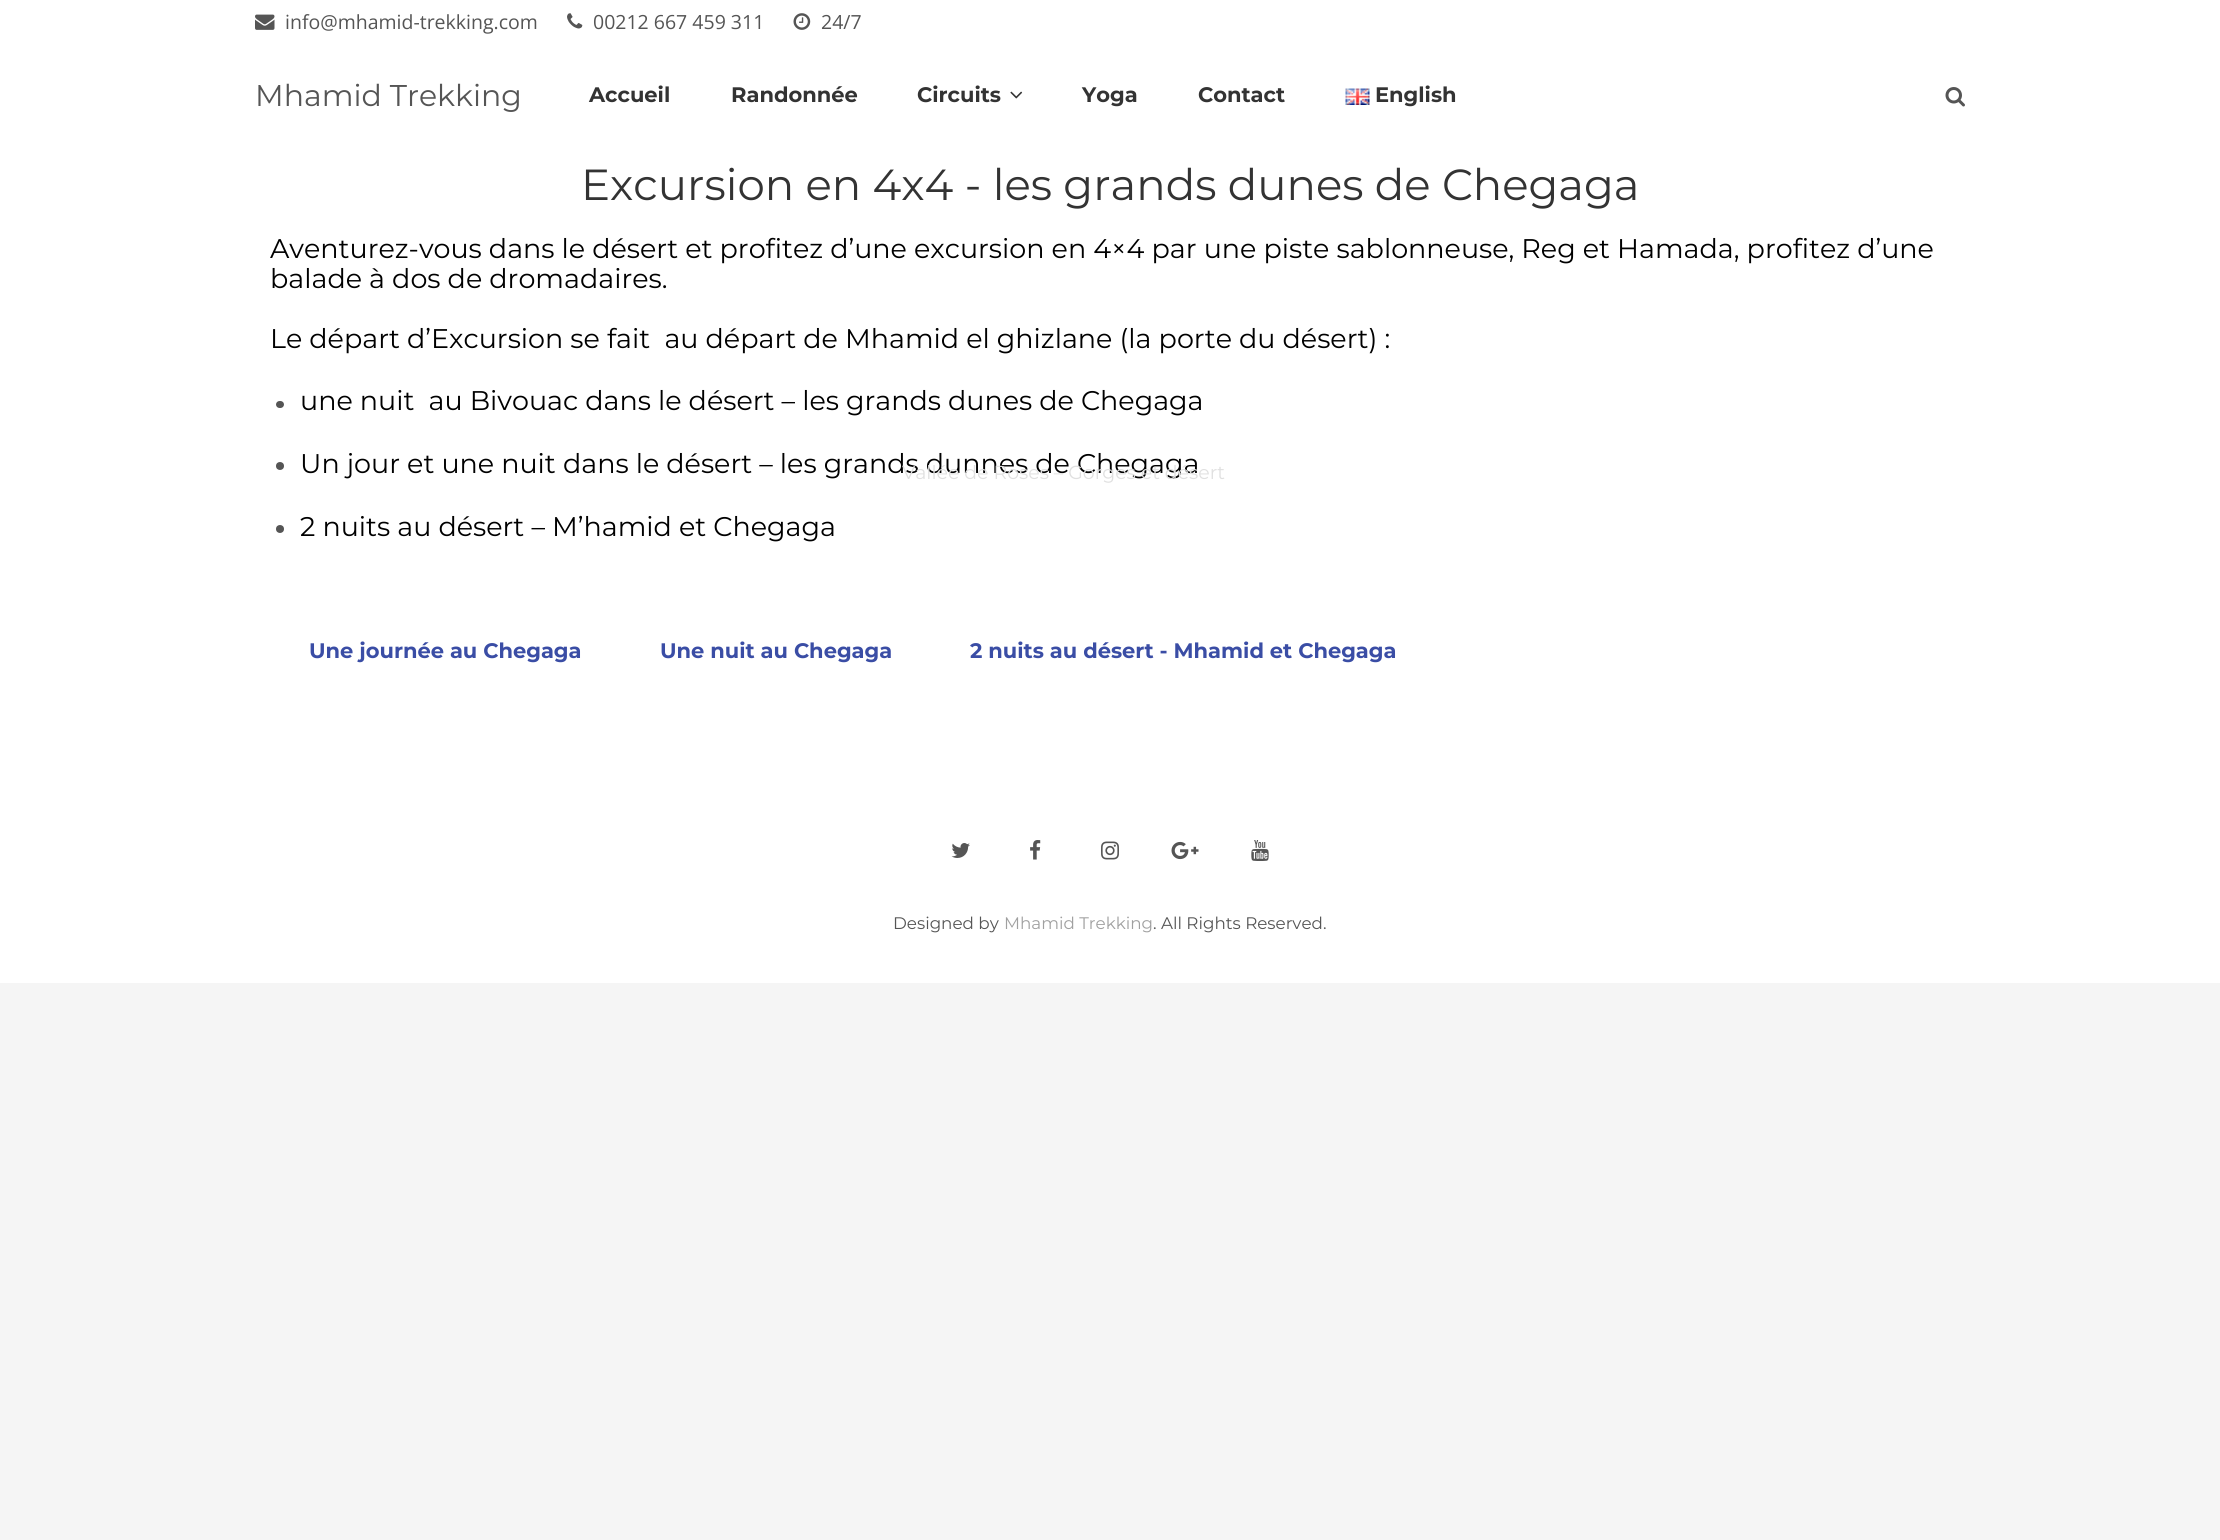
#include <cairo.h>
#include <math.h>
#include <stddef.h>

typedef struct { const char *family; double size; int italic, bold; unsigned color; } style_t;
static cairo_t *ctx;

static void ink(unsigned color) {
    cairo_set_source_rgb(ctx, (color >> 16) / 255.0, (color >> 8 & 255) / 255.0, (color & 255) / 255.0);
}

static void write(double x, double y, const char *s, const style_t *st) {
    cairo_select_font_face(ctx, st->family, st->italic ? CAIRO_FONT_SLANT_ITALIC : CAIRO_FONT_SLANT_NORMAL,
        st->bold ? CAIRO_FONT_WEIGHT_BOLD : CAIRO_FONT_WEIGHT_NORMAL);
    cairo_set_font_size(ctx, st->size);
    ink(st->color);
    cairo_move_to(ctx, x, y);
    cairo_show_text(ctx, s);
}

static void block(double x, double y, double w, double h, unsigned color) {
    ink(color);
    cairo_rectangle(ctx, x, y, w, h);
    cairo_fill(ctx);
}

static void round_path(double x, double y, double w, double h, double r) {
    cairo_new_sub_path(ctx);
    cairo_arc(ctx, x + w - r, y + h - r, r, 0, M_PI / 2);
    cairo_arc(ctx, x + r, y + h - r, r, M_PI / 2, M_PI);
    cairo_arc(ctx, x + r, y + r, r, M_PI, 1.5 * M_PI);
    cairo_arc(ctx, x + w - r, y + r, r, 1.5 * M_PI, 2 * M_PI);
    cairo_close_path(ctx);
}

static void paste(const char *path, double x, double y, double w, double h) {
    cairo_surface_t *image = cairo_image_surface_create_from_png(path);
    cairo_save(ctx);
    cairo_set_source_surface(ctx, image, x, y);
    cairo_rectangle(ctx, x, y, w, h);
    cairo_fill(ctx);
    cairo_restore(ctx);
    cairo_surface_destroy(image);
}

static const style_t s1 = {"Open Sans", 19.5, 0, 0, 0x555555};
static const style_t s2 = {"Montserrat", 30, 0, 0, 0x555555};
static const style_t s3 = {"Montserrat", 21, 0, 1, 0x333333};
static const style_t s4 = {"Montserrat", 27, 0, 0, 0x000000};
static const style_t s5 = {"Montserrat", 18.9, 0, 0, 0xe0e0e0};
static const style_t s6 = {"Montserrat", 43.5, 0, 0, 0x333333};
static const style_t s7 = {"Montserrat", 21, 0, 1, 0x3a4da5};
static const style_t s8 = {"Montserrat", 16.75, 0, 0, 0x555555};
static const style_t s9 = {"Montserrat", 16.75, 0, 0, 0xa0a0a0};

int main(void) {
    cairo_surface_t *surface = cairo_image_surface_create(CAIRO_FORMAT_RGB24, 2220, 1540);
    ctx = cairo_create(surface);
    cairo_font_options_t *options = cairo_font_options_create();
    cairo_font_options_set_hint_metrics(options, CAIRO_HINT_METRICS_OFF);
    cairo_font_options_set_hint_style(options, CAIRO_HINT_STYLE_NONE);
    cairo_set_font_options(ctx, options);
    cairo_set_miter_limit(ctx, 4);
    ink(0xf5f5f5);
    cairo_paint(ctx);
    block(0, 0, 2220, 708, 0xffffff);
    paste("pic1.png", 255, 14, 20, 16);
    write(285, 29, "info@mhamid-trekking.com", &s1);
    paste("pic2.png", 567, 13, 16, 16);
    write(593, 29, "00212 667 459 311", &s1);
    paste("pic3.png", 793, 13, 18, 17);
    write(821, 29, "24/7", &s1);
    write(255, 106, "Mhamid Trekking", &s2);
    write(589, 102, "Accueil", &s3);
    write(731, 102, "Randonnée", &s3);
    write(917, 102, "Circuits", &s3);
    paste("pic4.png", 1010, 91, 13, 8);
    write(300, 473, "Un jour et une nuit dans le désert – les grands dunnes de Chegaga", &s4);
    write(902, 479, "Vallée de Roses – Gorges et désert", &s5);
    paste("pic5.png", 1345, 88, 25, 17);
    write(1375, 102, "English", &s3);
    write(1082, 102, "Yoga", &s3);
    write(1198, 102, "Contact", &s3);
    paste("pic6.png", 1945, 87, 20, 20);
    write(581, 200, "Excursion en 4x4 - les grands dunes de Chegaga", &s6);
    write(270, 258, "Aventurez-vous dans le désert et profitez d’une excursion en 4×4 par une piste sablonneuse, Reg et Hamada, profitez d’une", &s4);
    write(270, 288, "balade à dos de dromadaires.", &s4);
    write(270, 348, "Le départ d’Excursion se fait  au départ de Mhamid el ghizlane (la porte du désert) :", &s4);
    ink(0x555555);
    round_path(276, 401, 8, 7, 3.5);
    cairo_fill(ctx);
    write(300, 410, "une nuit  au Bivouac dans le désert – les grands dunes de Chegaga", &s4);
    ink(0x555555);
    cairo_new_path(ctx);
    cairo_arc(ctx, 280, 466, 4, 0, 2 * M_PI);
    cairo_fill(ctx);
    cairo_arc(ctx, 280, 529, 4, 0, 2 * M_PI);
    cairo_fill(ctx);
    write(300, 536, "2 nuits au désert – M’hamid et Chegaga", &s4);
    write(309, 658, "Une journée au Chegaga", &s7);
    write(660, 658, "Une nuit au Chegaga", &s7);
    write(970, 658, "2 nuits au désert - Mhamid et Chegaga", &s7);
    block(0, 708, 2220, 275, 0xffffff);
    paste("pic7.png", 951, 843, 19, 15);
    paste("pic8.png", 1030, 840, 11, 20);
    paste("pic9.png", 1101, 841, 18, 19);
    paste("pic10.png", 1171, 841, 28, 19);
    paste("pic11.png", 1251, 840, 18, 21);
    write(893, 929, "Designed by", &s8);
    write(1004, 929, "Mhamid Trekking", &s9);
    write(1153, 929, ". All Rights Reserved.", &s8);
    cairo_surface_write_to_png(surface, "screenshot.png");
    cairo_font_options_destroy(options);
    cairo_destroy(ctx);
    cairo_surface_destroy(surface);
    return 0;
}
